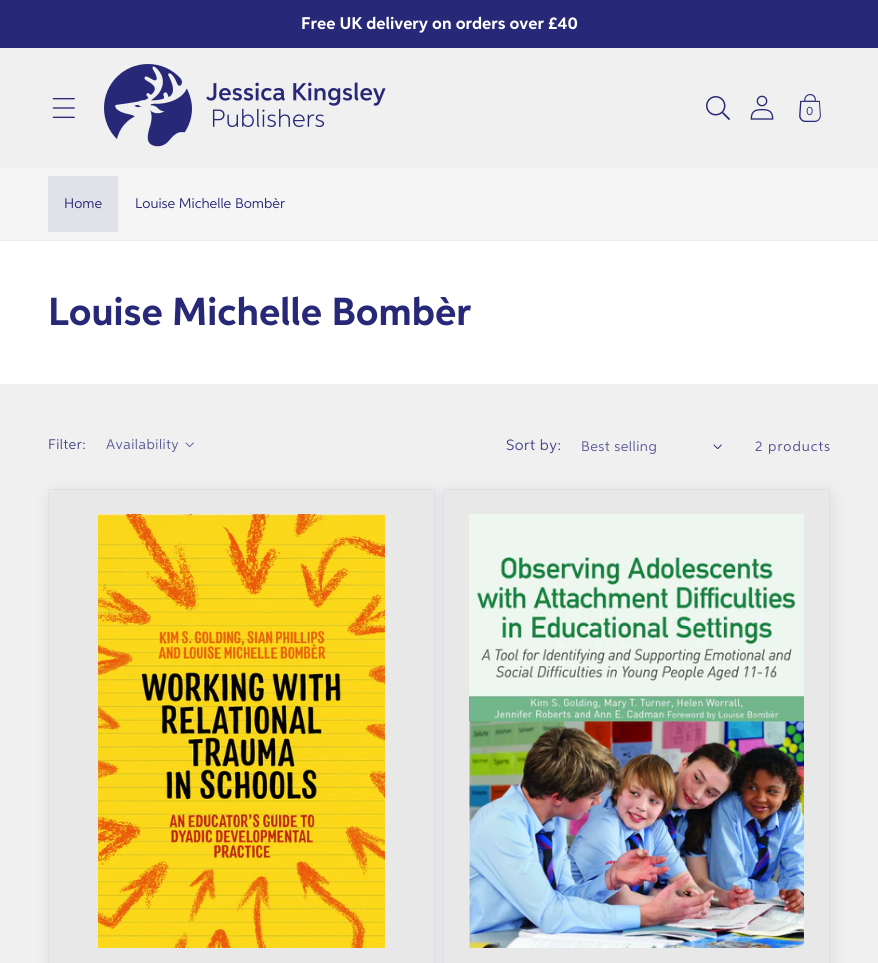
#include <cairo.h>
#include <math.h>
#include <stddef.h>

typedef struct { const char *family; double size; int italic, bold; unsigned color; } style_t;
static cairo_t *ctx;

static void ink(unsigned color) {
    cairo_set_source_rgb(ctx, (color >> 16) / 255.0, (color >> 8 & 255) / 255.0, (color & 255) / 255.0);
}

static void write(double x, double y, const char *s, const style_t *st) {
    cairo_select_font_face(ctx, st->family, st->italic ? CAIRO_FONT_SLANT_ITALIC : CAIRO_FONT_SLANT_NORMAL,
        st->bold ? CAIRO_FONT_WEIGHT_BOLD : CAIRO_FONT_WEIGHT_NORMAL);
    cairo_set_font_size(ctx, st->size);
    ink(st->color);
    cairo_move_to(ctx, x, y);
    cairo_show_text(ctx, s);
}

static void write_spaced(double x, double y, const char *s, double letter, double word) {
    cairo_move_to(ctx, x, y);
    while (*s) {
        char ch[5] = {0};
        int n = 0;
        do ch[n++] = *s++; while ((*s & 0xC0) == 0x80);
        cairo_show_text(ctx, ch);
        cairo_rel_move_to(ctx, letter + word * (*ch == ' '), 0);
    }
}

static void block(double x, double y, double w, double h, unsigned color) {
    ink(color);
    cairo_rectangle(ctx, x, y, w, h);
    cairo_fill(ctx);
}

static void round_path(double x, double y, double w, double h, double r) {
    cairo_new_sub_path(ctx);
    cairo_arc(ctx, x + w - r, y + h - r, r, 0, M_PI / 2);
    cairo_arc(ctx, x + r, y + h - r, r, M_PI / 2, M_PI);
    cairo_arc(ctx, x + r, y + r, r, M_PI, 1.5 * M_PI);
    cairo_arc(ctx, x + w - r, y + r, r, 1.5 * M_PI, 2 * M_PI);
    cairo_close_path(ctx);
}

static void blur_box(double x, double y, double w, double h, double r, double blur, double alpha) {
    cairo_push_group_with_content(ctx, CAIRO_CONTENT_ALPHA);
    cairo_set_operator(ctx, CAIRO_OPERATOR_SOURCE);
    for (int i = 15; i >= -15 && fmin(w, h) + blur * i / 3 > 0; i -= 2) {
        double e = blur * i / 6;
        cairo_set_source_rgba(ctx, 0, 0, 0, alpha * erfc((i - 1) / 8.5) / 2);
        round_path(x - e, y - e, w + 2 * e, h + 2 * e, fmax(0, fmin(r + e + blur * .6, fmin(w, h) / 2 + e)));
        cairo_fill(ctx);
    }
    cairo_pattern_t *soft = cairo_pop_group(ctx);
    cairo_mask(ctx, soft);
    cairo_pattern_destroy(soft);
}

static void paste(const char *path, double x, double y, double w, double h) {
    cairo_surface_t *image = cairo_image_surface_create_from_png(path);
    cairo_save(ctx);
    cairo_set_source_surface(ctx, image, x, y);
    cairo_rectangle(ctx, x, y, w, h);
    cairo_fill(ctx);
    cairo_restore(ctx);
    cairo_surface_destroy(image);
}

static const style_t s1 = {"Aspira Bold", 17, 0, 1, 0xffffff};
static const style_t s2 = {"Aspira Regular", 12, 0, 0, 0x282878};
static const style_t s3 = {"Aspira Regular", 14, 0, 0, 0x282878};
static const style_t s4 = {"Aspira Bold", 39.25, 0, 1, 0x282878};

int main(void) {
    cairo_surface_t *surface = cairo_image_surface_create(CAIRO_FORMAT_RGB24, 878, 963);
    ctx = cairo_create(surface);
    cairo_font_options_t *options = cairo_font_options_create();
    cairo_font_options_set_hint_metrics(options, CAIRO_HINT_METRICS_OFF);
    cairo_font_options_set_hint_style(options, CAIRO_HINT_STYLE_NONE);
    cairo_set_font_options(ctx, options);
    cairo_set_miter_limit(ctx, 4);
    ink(0xf0f0f0);
    cairo_paint(ctx);
    block(0, 0, 878, 48, 0x282878);
    write(301, 29, "Free UK delivery on orders over £40", &s1);
    paste("pic1.png", 52, 98, 23, 20);
    paste("pic2.png", 104, 64, 282, 83);
    paste("pic3.png", 706, 96, 24, 24);
    paste("pic4.png", 750, 95, 24, 25);
    paste("pic5.png", 799, 94, 22, 28);
    write(806, 115, "0", &s2);
    block(0, 168, 878, 72, 0xf5f5f5);
    block(0, 240, 878, 1, 0xe9e9ee);
    block(48, 176, 70, 56, 0xe1e1e9);
    write(64, 208, "Home", &s3);
    write(135, 208, "Louise Michelle Bombèr", &s3);
    block(0, 241, 878, 143, 0xffffff);
    write(48, 325, "Louise Michelle Bombèr", &s4);
    cairo_select_font_face(ctx, "Aspira Regular", CAIRO_FONT_SLANT_NORMAL, CAIRO_FONT_WEIGHT_NORMAL);
    cairo_set_font_size(ctx, 14);
    ink(0x46468a);
    write_spaced(48, 449, "Filter:", 0.5, 0);
    ink(0x5a5a96);
    write_spaced(106, 449, "Availability", 0.5, 0);
    paste("pic6.png", 185, 442, 9, 6);
    cairo_set_font_size(ctx, 15);
    ink(0x46468a);
    write_spaced(506, 450, "Sort by:", 0.5, 0);
    cairo_set_font_size(ctx, 14);
    ink(0x5a5a96);
    write_spaced(581, 451, "Best selling", 0.5, 0);
    paste("pic7.png", 713, 444, 9, 5);
    ink(0x505090);
    write_spaced(755, 451, "2 products", 1, 0);
    ink(0x282878);
    blur_box(50, 491, 387, 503, 8, 7.5, 0.1);
    blur_box(445, 491, 387, 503, 8, 7.5, 0.1);
    ink(0xe8e8e8);
    round_path(48, 489, 387, 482, 8);
    cairo_fill(ctx);
    cairo_rectangle(ctx, 48.5, 489.5, 386, 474);
    cairo_set_source_rgba(ctx, 0.157, 0.157, 0.471, 0.05);
    cairo_set_line_width(ctx, 1);
    cairo_stroke(ctx);
    paste("pic8.png", 98, 514, 287, 434);
    ink(0xe8e8e8);
    round_path(443, 489, 387, 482, 8);
    cairo_fill(ctx);
    cairo_rectangle(ctx, 443.5, 489.5, 386, 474);
    cairo_set_source_rgba(ctx, 0.157, 0.157, 0.471, 0.05);
    cairo_stroke(ctx);
    paste("pic9.png", 469, 514, 335, 434);
    cairo_surface_write_to_png(surface, "screenshot.png");
    cairo_font_options_destroy(options);
    cairo_destroy(ctx);
    cairo_surface_destroy(surface);
    return 0;
}
